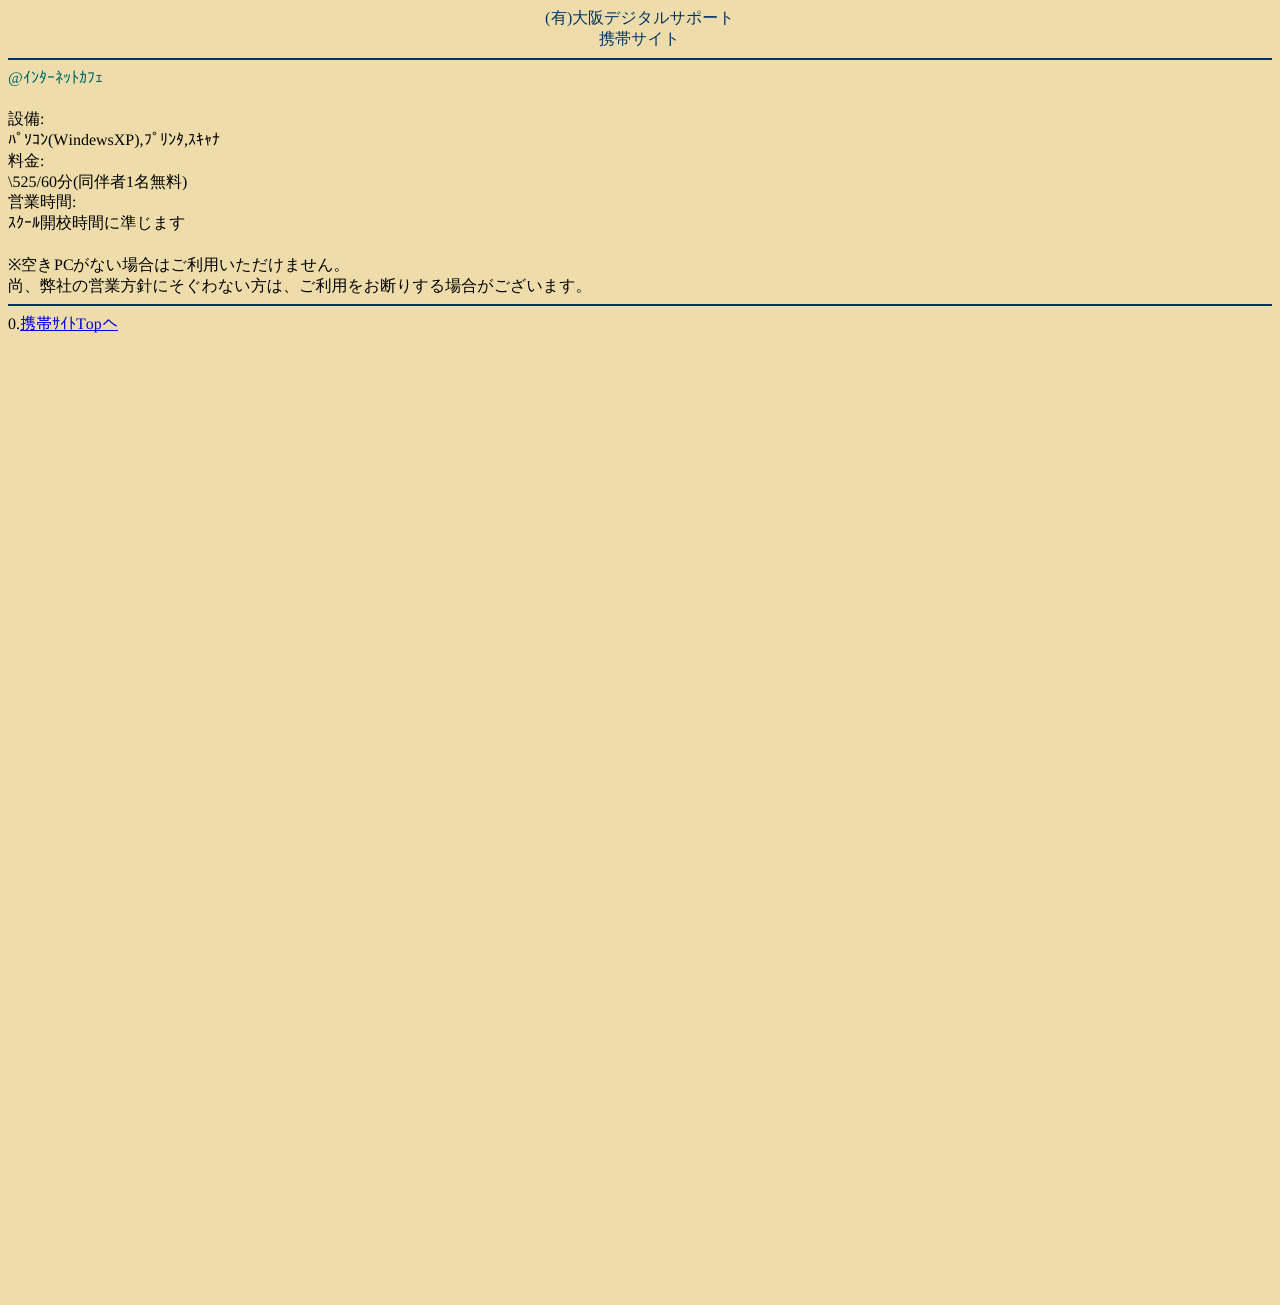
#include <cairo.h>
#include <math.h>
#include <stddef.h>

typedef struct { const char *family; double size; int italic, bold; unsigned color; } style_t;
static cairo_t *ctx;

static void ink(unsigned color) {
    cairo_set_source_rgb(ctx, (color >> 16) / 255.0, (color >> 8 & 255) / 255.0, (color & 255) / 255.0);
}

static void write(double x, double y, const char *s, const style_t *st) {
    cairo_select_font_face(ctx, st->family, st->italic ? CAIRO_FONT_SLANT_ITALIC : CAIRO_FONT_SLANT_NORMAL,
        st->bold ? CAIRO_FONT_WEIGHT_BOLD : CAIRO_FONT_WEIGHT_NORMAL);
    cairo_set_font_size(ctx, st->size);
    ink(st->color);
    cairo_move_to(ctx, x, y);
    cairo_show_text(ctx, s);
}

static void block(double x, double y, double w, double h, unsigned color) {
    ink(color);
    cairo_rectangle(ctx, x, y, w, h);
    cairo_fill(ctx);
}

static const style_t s1 = {"Liberation Serif", 16, 0, 0, 0x003366};
static const style_t s2 = {"WenQuanYi Zen Hei Medium", 16, 0, 0, 0x003366};
static const style_t s3 = {"Liberation Serif", 16, 0, 0, 0x006666};
static const style_t s4 = {"IPAGothic", 16, 0, 0, 0x006666};
static const style_t s5 = {"WenQuanYi Zen Hei Medium", 16, 0, 0, 0x000000};
static const style_t s6 = {"Liberation Serif", 16, 0, 0, 0x000000};
static const style_t s7 = {"IPAGothic", 16, 0, 0, 0x000000};
static const style_t s8 = {"Noto Sans", 16, 0, 0, 0x000000};
static const style_t s9 = {"IPAGothic", 16, 0, 0, 0x0000ee};
static const style_t s10 = {"Liberation Serif", 16, 0, 0, 0x0000ee};

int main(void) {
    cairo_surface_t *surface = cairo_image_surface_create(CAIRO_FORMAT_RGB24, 1280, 1305);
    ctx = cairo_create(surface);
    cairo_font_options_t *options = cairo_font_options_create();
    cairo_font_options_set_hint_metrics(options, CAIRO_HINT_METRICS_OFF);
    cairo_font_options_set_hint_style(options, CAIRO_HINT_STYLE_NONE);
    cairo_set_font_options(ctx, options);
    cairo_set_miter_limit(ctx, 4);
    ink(0xeeddaa);
    cairo_paint(ctx);
    write(545, 23, "(", &s1);
    write(551, 23, "有", &s2);
    write(567, 23, ")", &s1);
    write(572, 23, "大阪デジタルサポート", &s2);
    write(599, 44, "携帯サイト", &s2);
    block(8, 58, 1264, 2, 0x003366);
    write(8, 83, "@", &s3);
    write(23, 83, "ｲﾝﾀｰﾈｯﾄｶﾌｪ", &s4);
    write(8, 124, "設備", &s5);
    write(40, 124, ":", &s6);
    write(8, 145, "ﾊﾟｿｺﾝ", &s7);
    write(48, 145, "(WindewsXP),", &s6);
    write(144, 145, "ﾌﾟﾘﾝﾀ", &s7);
    write(184, 145, ",", &s6);
    write(188, 145, "ｽｷｬﾅ", &s7);
    write(8, 166, "料金", &s5);
    write(40, 166, ":", &s6);
    write(8, 187, "\\525/60", &s6);
    write(57, 187, "分", &s5);
    write(73, 187, "(", &s6);
    write(78, 187, "同伴者", &s5);
    write(126, 187, "1", &s6);
    write(134, 187, "名無料", &s5);
    write(182, 187, ")", &s6);
    write(8, 207, "営業時間", &s5);
    write(72, 207, ":", &s6);
    write(8, 228, "ｽｸｰﾙ", &s7);
    write(40, 228, "開校時間に準じます", &s5);
    write(8, 270, "※", &s8);
    write(21, 270, "空き", &s5);
    write(54, 270, "PC", &s6);
    write(73, 270, "がない場合はご利用いただけません。", &s5);
    write(8, 291, "尚、弊社の営業方針にそぐわない方は、ご利用をお断りする場合がございます。", &s5);
    block(8, 304, 1264, 2, 0x003366);
    write(8, 329, "0.", &s6);
    block(20, 330, 98, 1, 0x0000ee);
    write(20, 329, "携帯ｻｲﾄ", &s9);
    write(76, 329, "Top", &s10);
    write(102, 329, "へ", &s9);
    cairo_surface_write_to_png(surface, "screenshot.png");
    cairo_font_options_destroy(options);
    cairo_destroy(ctx);
    cairo_surface_destroy(surface);
    return 0;
}
